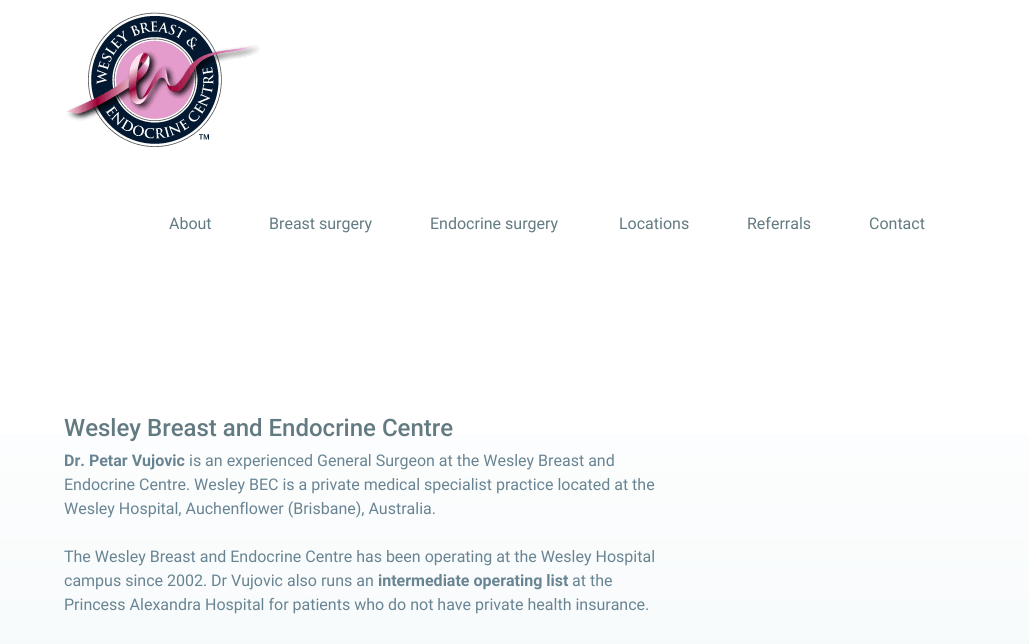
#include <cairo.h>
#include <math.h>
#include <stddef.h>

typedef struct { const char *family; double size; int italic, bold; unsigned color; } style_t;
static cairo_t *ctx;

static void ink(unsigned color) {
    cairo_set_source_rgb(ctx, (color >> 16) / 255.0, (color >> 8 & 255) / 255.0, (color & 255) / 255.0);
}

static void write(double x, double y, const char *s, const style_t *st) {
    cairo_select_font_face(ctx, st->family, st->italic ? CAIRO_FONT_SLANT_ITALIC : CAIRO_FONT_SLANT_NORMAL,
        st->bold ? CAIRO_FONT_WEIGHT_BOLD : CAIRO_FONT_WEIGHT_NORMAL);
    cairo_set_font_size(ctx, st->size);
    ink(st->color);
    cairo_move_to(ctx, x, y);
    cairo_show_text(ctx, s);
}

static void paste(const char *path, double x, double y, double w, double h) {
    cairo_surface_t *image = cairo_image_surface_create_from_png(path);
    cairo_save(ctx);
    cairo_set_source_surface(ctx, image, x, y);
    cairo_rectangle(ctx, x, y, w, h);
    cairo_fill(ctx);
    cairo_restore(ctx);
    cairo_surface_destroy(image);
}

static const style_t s1 = {"Roboto", 16, 0, 0, 0x627a81};
static const style_t s2 = {"Roboto Medium", 24, 0, 0, 0x627a81};
static const style_t s3 = {"Roboto", 16, 0, 1, 0x688493};
static const style_t s4 = {"Roboto", 16, 0, 0, 0x688493};

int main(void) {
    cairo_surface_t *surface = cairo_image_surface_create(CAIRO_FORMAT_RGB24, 1029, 644);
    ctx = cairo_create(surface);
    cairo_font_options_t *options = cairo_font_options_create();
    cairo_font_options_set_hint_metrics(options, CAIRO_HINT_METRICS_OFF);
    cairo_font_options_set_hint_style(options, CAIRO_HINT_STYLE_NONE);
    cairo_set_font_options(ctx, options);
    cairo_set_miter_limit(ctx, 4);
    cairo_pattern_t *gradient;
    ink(0xffffff);
    cairo_paint(ctx);
    paste("pic1.png", 66, 12, 194, 135);
    write(169, 229, "About", &s1);
    write(269, 229, "Breast surgery", &s1);
    write(430, 229, "Endocrine surgery", &s1);
    write(619, 229, "Locations", &s1);
    write(747, 229, "Referrals", &s1);
    write(869, 229, "Contact", &s1);
    gradient = cairo_pattern_create_linear(515, 330, 515, 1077);
    cairo_pattern_add_color_stop_rgba(gradient, 0, 1, 1, 1, 1);
    cairo_pattern_add_color_stop_rgba(gradient, 1, 0.929, 0.957, 0.965, 1);
    cairo_set_source(ctx, gradient);
    cairo_pattern_destroy(gradient);
    cairo_rectangle(ctx, 0, 434, 1029, 210);
    cairo_fill(ctx);
    write(64, 436, "Wesley Breast and Endocrine Centre", &s2);
    write(64, 466, "Dr. Petar Vujovic", &s3);
    write(189, 466, "is an experienced General Surgeon at the Wesley Breast and", &s4);
    write(64, 490, "Endocrine Centre. Wesley BEC is a private medical specialist practice located at the", &s4);
    write(64, 514, "Wesley Hospital, Auchenflower (Brisbane), Australia.", &s4);
    write(64, 562, "The Wesley Breast and Endocrine Centre has been operating at the Wesley Hospital", &s4);
    write(64, 586, "campus since 2002. Dr Vujovic also runs an", &s4);
    write(378, 586, "intermediate operating list", &s3);
    write(572, 586, "at the", &s4);
    write(64, 610, "Princess Alexandra Hospital for patients who do not have private health insurance.", &s4);
    cairo_surface_write_to_png(surface, "screenshot.png");
    cairo_font_options_destroy(options);
    cairo_destroy(ctx);
    cairo_surface_destroy(surface);
    return 0;
}
